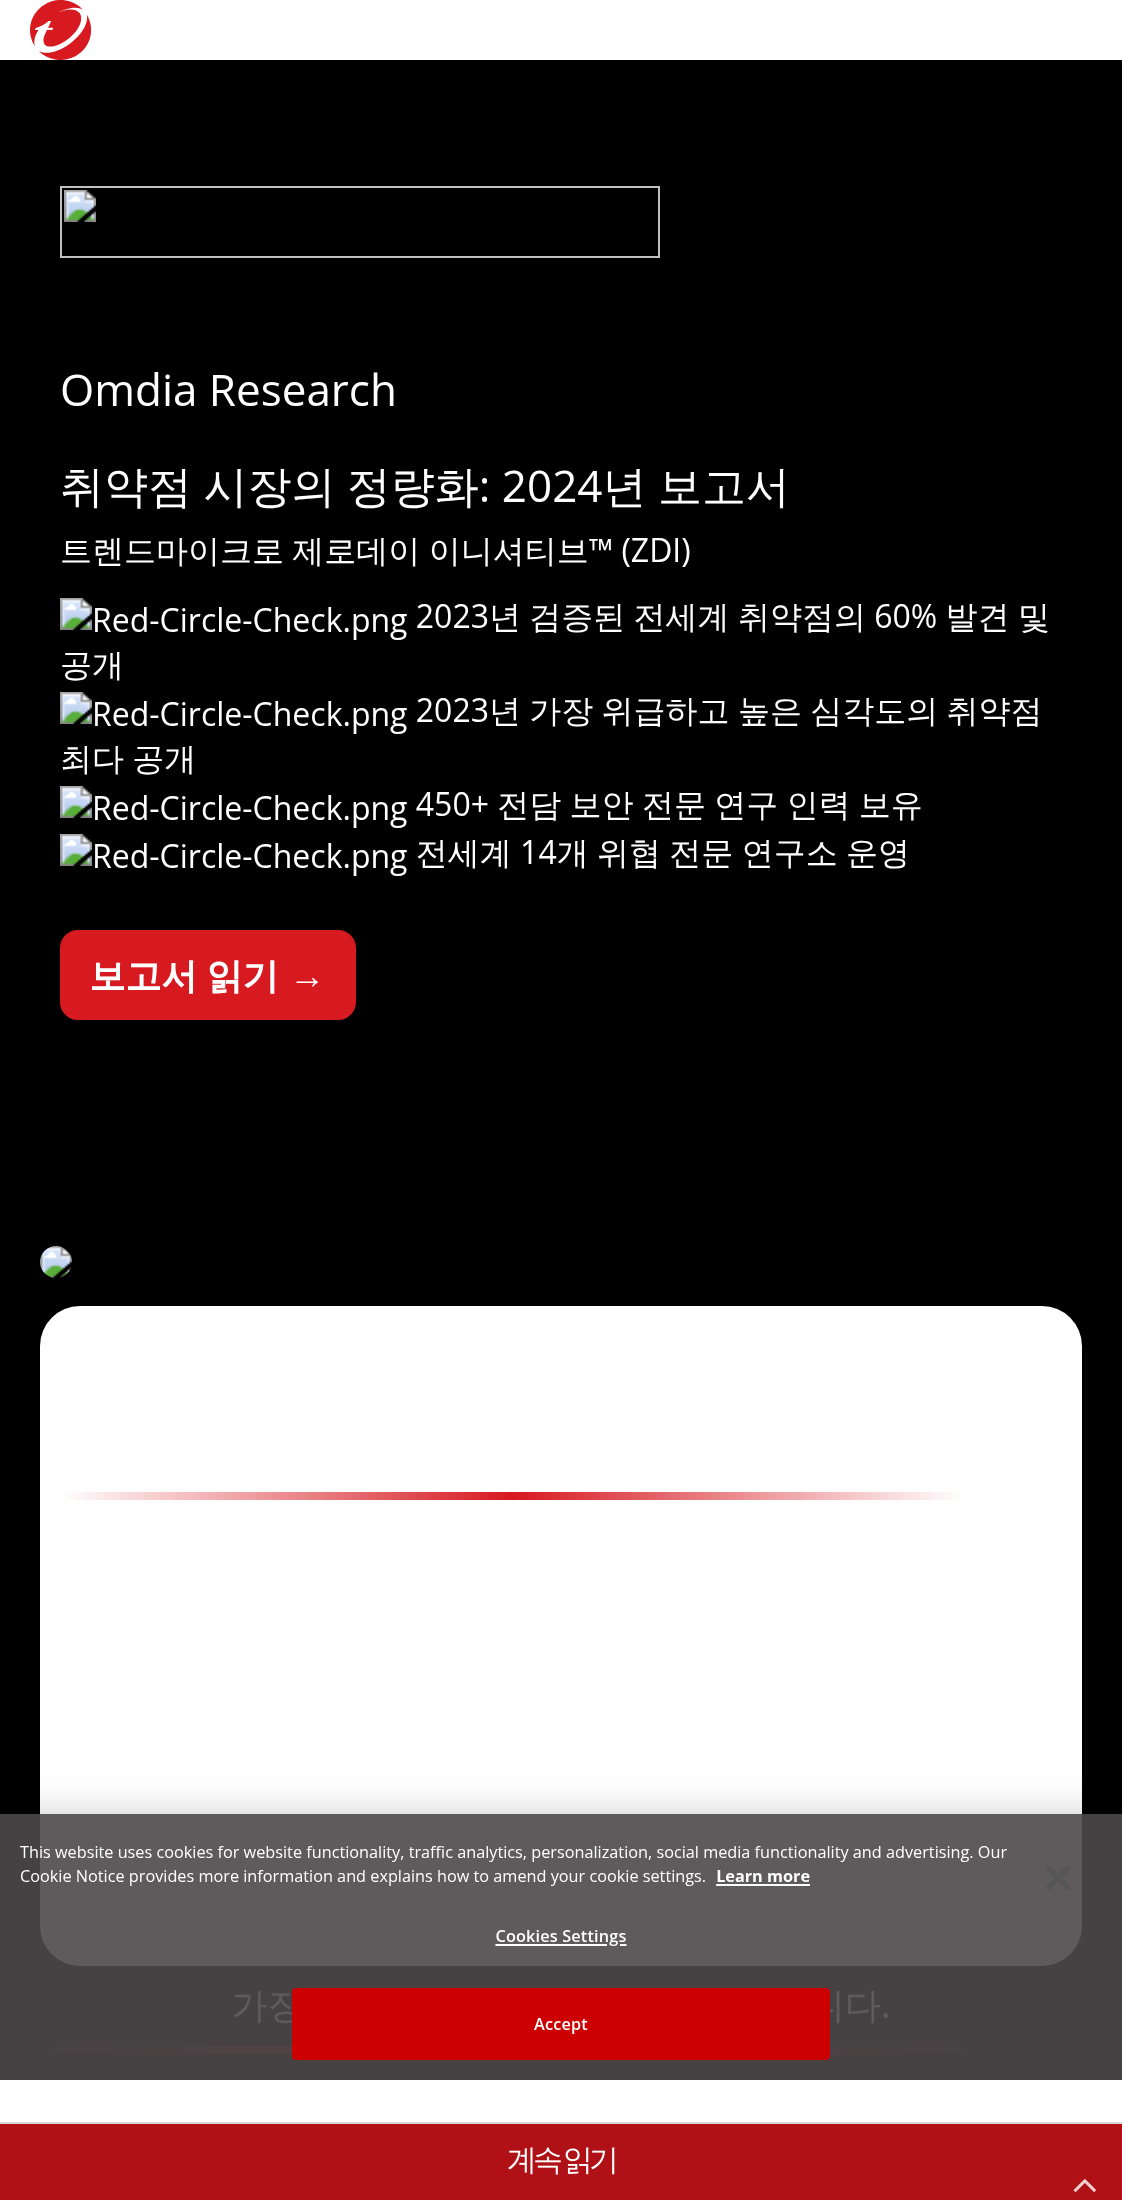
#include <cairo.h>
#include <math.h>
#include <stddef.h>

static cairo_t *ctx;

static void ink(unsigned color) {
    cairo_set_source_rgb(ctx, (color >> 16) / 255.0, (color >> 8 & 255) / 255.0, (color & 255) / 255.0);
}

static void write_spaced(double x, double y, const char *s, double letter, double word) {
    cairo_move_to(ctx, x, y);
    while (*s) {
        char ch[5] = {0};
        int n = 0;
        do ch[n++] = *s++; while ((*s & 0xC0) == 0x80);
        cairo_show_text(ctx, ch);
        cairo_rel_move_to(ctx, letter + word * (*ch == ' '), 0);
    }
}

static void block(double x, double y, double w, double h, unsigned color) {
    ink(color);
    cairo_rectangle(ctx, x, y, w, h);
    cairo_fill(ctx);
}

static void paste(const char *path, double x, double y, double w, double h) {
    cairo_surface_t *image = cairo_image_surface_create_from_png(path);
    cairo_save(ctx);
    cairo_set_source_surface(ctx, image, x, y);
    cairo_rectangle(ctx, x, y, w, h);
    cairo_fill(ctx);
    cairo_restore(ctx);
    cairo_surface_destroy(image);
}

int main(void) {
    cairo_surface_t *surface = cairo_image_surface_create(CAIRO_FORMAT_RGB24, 1122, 2200);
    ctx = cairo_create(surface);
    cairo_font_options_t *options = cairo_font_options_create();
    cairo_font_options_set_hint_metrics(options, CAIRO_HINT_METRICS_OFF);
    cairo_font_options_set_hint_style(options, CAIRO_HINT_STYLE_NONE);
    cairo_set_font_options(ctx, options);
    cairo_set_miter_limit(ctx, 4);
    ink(0xffffff);
    cairo_paint(ctx);
    paste("pic1.png", 0, 0, 1122, 2080);
    block(0, 2122, 1122, 2, 0xd9d9d9);
    block(0, 2124, 1122, 76, 0xb01116);
    cairo_select_font_face(ctx, "WenQuanYi Zen Hei Medium", CAIRO_FONT_SLANT_NORMAL, CAIRO_FONT_WEIGHT_NORMAL);
    cairo_set_font_size(ctx, 30);
    ink(0xffffff);
    write_spaced(507, 2170, "계속 읽기", -4, -1);
    paste("pic2.png", 1073, 2179, 23, 13);
    cairo_surface_write_to_png(surface, "screenshot.png");
    cairo_font_options_destroy(options);
    cairo_destroy(ctx);
    cairo_surface_destroy(surface);
    return 0;
}
